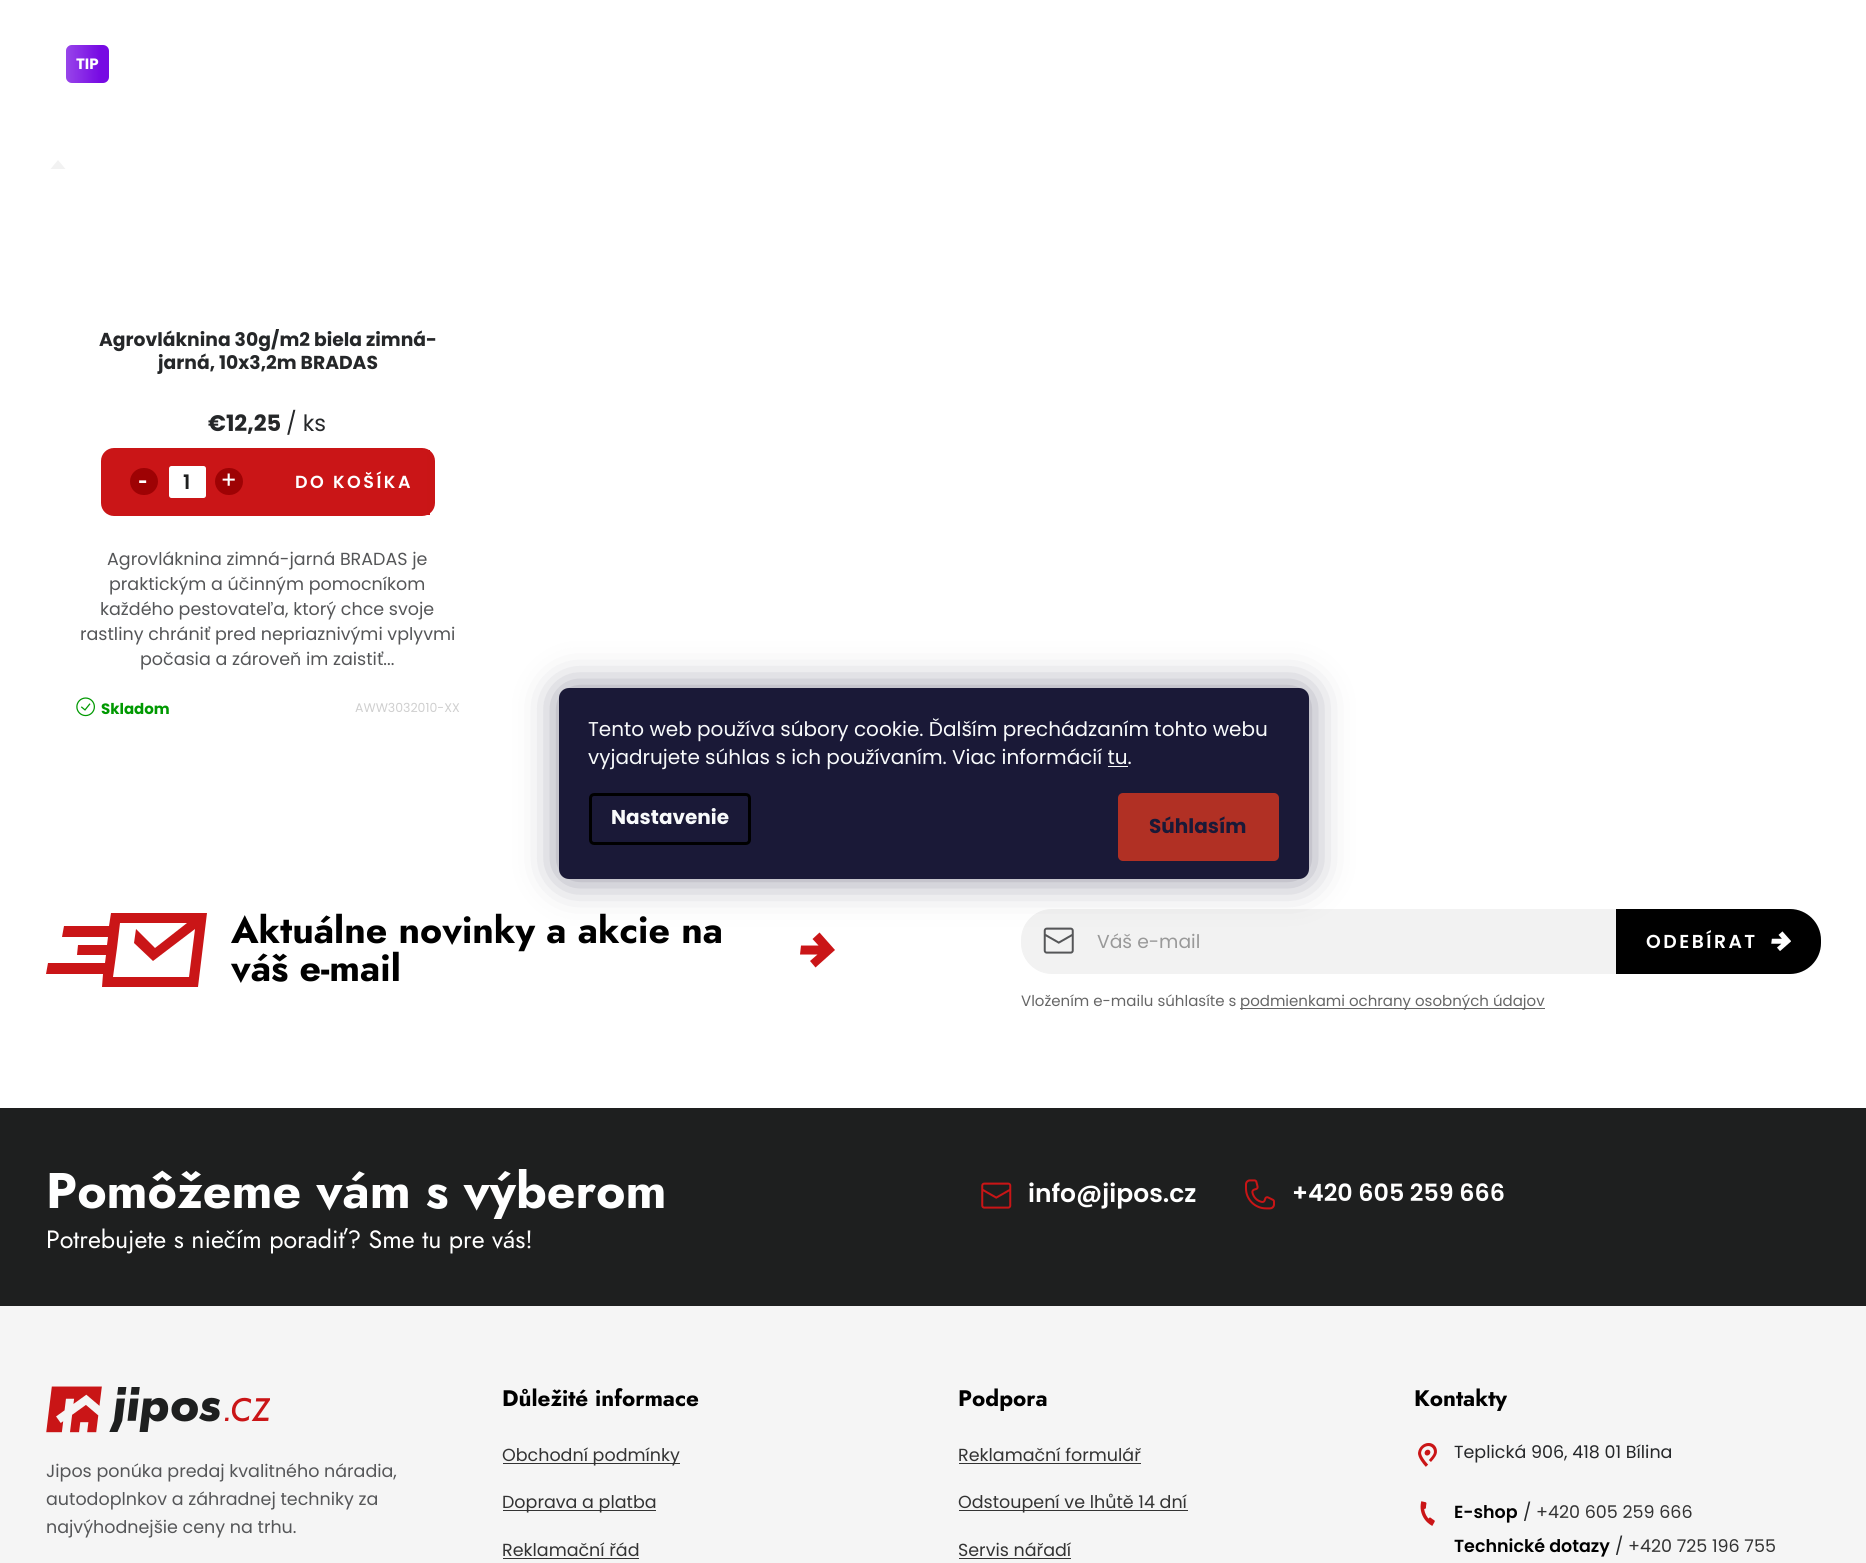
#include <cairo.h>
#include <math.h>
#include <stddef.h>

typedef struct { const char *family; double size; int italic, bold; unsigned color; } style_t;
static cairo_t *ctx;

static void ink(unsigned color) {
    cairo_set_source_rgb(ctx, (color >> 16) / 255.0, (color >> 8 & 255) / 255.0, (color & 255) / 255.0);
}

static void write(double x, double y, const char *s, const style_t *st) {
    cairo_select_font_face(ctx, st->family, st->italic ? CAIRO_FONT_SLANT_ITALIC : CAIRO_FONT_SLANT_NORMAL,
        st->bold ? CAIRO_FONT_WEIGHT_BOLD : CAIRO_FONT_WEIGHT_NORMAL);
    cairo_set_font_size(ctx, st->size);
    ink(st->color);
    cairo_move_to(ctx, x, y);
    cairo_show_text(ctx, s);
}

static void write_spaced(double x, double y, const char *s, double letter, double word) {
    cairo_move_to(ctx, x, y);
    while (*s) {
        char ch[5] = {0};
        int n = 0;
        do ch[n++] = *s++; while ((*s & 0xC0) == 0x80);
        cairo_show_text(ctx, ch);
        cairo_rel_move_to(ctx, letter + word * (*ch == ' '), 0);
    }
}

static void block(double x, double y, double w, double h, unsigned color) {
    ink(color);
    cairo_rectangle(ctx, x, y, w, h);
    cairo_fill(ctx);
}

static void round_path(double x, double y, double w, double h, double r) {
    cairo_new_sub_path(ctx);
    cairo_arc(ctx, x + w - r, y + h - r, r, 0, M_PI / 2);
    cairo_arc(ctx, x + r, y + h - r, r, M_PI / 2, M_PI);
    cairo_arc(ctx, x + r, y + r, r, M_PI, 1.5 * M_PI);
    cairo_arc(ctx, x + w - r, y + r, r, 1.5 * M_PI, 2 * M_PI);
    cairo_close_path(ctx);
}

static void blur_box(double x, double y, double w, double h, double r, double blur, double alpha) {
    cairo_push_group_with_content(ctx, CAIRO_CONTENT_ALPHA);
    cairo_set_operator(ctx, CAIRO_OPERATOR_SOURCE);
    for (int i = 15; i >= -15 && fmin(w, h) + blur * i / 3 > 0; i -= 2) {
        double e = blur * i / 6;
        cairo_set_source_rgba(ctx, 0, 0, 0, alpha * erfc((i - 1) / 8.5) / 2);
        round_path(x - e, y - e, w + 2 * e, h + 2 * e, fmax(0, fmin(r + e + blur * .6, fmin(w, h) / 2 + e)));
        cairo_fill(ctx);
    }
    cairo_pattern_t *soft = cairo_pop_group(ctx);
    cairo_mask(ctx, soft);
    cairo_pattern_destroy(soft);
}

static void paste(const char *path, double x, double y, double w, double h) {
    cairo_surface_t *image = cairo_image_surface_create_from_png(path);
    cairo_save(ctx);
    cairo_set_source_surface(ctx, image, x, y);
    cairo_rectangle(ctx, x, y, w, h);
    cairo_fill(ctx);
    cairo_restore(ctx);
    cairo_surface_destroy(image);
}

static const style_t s1 = {"Poppins", 15, 0, 1, 0xffffff};
static const style_t s2 = {"Poppins", 18.75, 0, 1, 0x252729};
static const style_t s3 = {"Poppins", 22.5, 0, 1, 0x252729};
static const style_t s4 = {"Poppins", 22.5, 0, 0, 0x252729};
static const style_t s5 = {"Jost", 35, 0, 0, 0xffffff};
static const style_t s6 = {"Poppins SemiBold", 20, 0, 0, 0x1e1f1f};
static const style_t s7 = {"Jost", 25, 0, 0, 0xffffff};
static const style_t s8 = {"Poppins", 17.5, 0, 0, 0x555658};
static const style_t s9 = {"Poppins", 15, 0, 1, 0x009901};
static const style_t s10 = {"Poppins", 12.5, 0, 0, 0xcfcfcf};
static const style_t s11 = {"Jost", 37.5, 0, 1, 0x000000};
static const style_t s12 = {"Poppins", 18.75, 0, 0, 0x999999};
static const style_t s13 = {"Poppins", 15, 0, 0, 0x666666};
static const style_t s14 = {"Jost", 50, 0, 1, 0xffffff};
static const style_t s15 = {"Poppins SemiBold", 25, 0, 0, 0xffffff};
static const style_t s16 = {"Poppins SemiBold", 23.75, 0, 0, 0xffffff};
static const style_t s17 = {"Jost", 22.5, 0, 1, 0x000000};
static const style_t s18 = {"Poppins", 17.5, 0, 0, 0x333333};
static const style_t s19 = {"Poppins", 17.5, 0, 0, 0x252729};
static const style_t s20 = {"Poppins SemiBold", 17.5, 0, 0, 0x000000};
static const style_t s21 = {"Poppins", 20, 0, 0, 0xf8fafb};
static const style_t s22 = {"Poppins", 20, 0, 1, 0xf8fafb};
static const style_t s23 = {"Poppins", 20, 0, 1, 0x1a1937};

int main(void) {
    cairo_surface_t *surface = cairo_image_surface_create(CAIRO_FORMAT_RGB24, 1866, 1563);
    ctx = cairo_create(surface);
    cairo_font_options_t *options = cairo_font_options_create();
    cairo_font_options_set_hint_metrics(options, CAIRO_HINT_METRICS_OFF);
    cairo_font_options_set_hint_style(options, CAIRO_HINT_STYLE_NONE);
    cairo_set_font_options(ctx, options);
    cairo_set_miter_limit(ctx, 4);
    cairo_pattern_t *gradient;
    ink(0xffffff);
    cairo_paint(ctx);
    ink(0xf2f2f2);
    cairo_new_path(ctx);
    cairo_move_to(ctx, 65.5, 169);
    cairo_line_to(ctx, 50.5, 169);
    cairo_line_to(ctx, 58, 160);
    cairo_close_path(ctx);
    cairo_fill(ctx);
    ink(0x770ae3);
    round_path(66, 45, 43, 38, 6);
    cairo_fill(ctx);
    gradient = cairo_pattern_create_linear(66, 64, 109, 64);
    cairo_pattern_add_color_stop_rgba(gradient, 0, 1, 1, 1, 0.24);
    cairo_pattern_add_color_stop_rgba(gradient, 0.8, 1, 1, 1, 0);
    cairo_pattern_add_color_stop_rgba(gradient, 1, 0, 0, 0, 0);
    cairo_set_source(ctx, gradient);
    cairo_pattern_destroy(gradient);
    round_path(66, 45, 43, 38, 6);
    cairo_fill(ctx);
    write(76, 69, "TIP", &s1);
    cairo_save(ctx);
    cairo_rectangle(ctx, 76, 329, 384, 69);
    cairo_clip(ctx);
    write(99, 346, "Agrovláknina 30g/m2 biela zimná-", &s2);
    cairo_restore(ctx);
    write(158, 369, "jarná, 10x3,2m BRADAS", &s2);
    write(208, 431, "€12,25", &s3);
    write(286, 431, "/ ks", &s4);
    ink(0xca1517);
    round_path(101, 448, 334, 68, 13);
    cairo_fill(ctx);
    ink(0x9e0204);
    round_path(130, 468, 28, 27, 13.5);
    cairo_fill(ctx);
    write(139, 490, "-", &s5);
    round_path(169, 466, 37, 32, 2.5);
    cairo_fill(ctx);
    write(183, 489, "1", &s6);
    ink(0x9e0204);
    round_path(215, 468, 28, 27, 13.5);
    cairo_fill(ctx);
    write(221, 486, "+", &s7);
    block(427, 450, 3, 65, 0xc91516);
    cairo_select_font_face(ctx, "Poppins SemiBold", CAIRO_FONT_SLANT_NORMAL, CAIRO_FONT_WEIGHT_NORMAL);
    cairo_set_font_size(ctx, 17.5);
    ink(0xffffff);
    write_spaced(295, 488, "DO KOŠÍKA", 2.5, 0);
    write(107, 565, "Agrovláknina zimná-jarná BRADAS je", &s8);
    write(109, 590, "praktickým a účinným pomocníkom", &s8);
    write(100, 615, "každého pestovateľa, ktorý chce svoje", &s8);
    write(80, 640, "rastliny chrániť pred nepriaznivými vplyvmi", &s8);
    write(140, 665, "počasia a zároveň im zaistiť...", &s8);
    paste("pic1.png", 76, 697, 19, 20);
    write(101, 714, "Skladom", &s9);
    write(355, 712, "AWW3032010-XX", &s10);
    block(0, 1306, 1866, 257, 0xf5f5f5);
    ink(0xca1517);
    cairo_new_path(ctx);
    cairo_move_to(ctx, 117, 948);
    cairo_line_to(ctx, 120, 923);
    cairo_line_to(ctx, 187, 923);
    cairo_line_to(ctx, 155, 948);
    cairo_line_to(ctx, 136, 929);
    cairo_line_to(ctx, 134, 943);
    cairo_line_to(ctx, 153, 961);
    cairo_line_to(ctx, 195, 929);
    cairo_line_to(ctx, 189, 977);
    cairo_line_to(ctx, 113, 977);
    cairo_close_path(ctx);
    cairo_move_to(ctx, 111, 913);
    cairo_line_to(ctx, 109, 926);
    cairo_line_to(ctx, 64, 926);
    cairo_line_to(ctx, 62, 937);
    cairo_line_to(ctx, 108, 937);
    cairo_line_to(ctx, 107, 945);
    cairo_line_to(ctx, 78, 945);
    cairo_line_to(ctx, 77, 955);
    cairo_line_to(ctx, 106, 955);
    cairo_line_to(ctx, 105, 963);
    cairo_line_to(ctx, 48, 963);
    cairo_line_to(ctx, 46, 974);
    cairo_line_to(ctx, 103, 974);
    cairo_line_to(ctx, 102, 987);
    cairo_line_to(ctx, 198, 987);
    cairo_line_to(ctx, 207, 913);
    cairo_close_path(ctx);
    cairo_fill(ctx);
    write(231, 943, "Aktuálne novinky a akcie na", &s11);
    write(231, 981, "váš e-mail", &s11);
    ink(0xca1517);
    cairo_new_path(ctx);
    cairo_move_to(ctx, 812.5, 939);
    cairo_line_to(ctx, 818.5, 945.5);
    cairo_line_to(ctx, 801, 945.5);
    cairo_line_to(ctx, 800, 954.5);
    cairo_line_to(ctx, 817.5, 954.5);
    cairo_line_to(ctx, 810, 961);
    cairo_line_to(ctx, 815.5, 967.5);
    cairo_line_to(ctx, 835, 950);
    cairo_line_to(ctx, 819.5, 932.5);
    cairo_close_path(ctx);
    cairo_fill(ctx);
    ink(0xf2f2f2);
    round_path(1021.5, 909.5, 799, 64, 30.5);
    cairo_fill_preserve(ctx);
    cairo_set_line_width(ctx, 1);
    cairo_stroke(ctx);
    paste("pic2.png", 1043, 927, 31, 27);
    write(1097, 948, "Váš e-mail", &s12);
    ink(0x000000);
    cairo_new_path(ctx);
    cairo_move_to(ctx, 1616, 909);
    cairo_line_to(ctx, 1790, 909);
    cairo_curve_to(ctx, 1807, 909, 1821, 923, 1821, 940);
    cairo_line_to(ctx, 1821, 943);
    cairo_curve_to(ctx, 1821, 960, 1807, 974, 1790, 974);
    cairo_line_to(ctx, 1616, 974);
    cairo_close_path(ctx);
    cairo_fill(ctx);
    cairo_select_font_face(ctx, "Poppins SemiBold", CAIRO_FONT_SLANT_NORMAL, CAIRO_FONT_WEIGHT_NORMAL);
    ink(0xffffff);
    write_spaced(1646, 948, "ODEBÍRAT", 2.5, 0);
    paste("pic3.png", 1771, 931, 20, 20);
    write(1021, 1006, "Vložením e-mailu súhlasíte s", &s13);
    block(1240, 1008, 305, 1, 0x666666);
    write(1240, 1006, "podmienkami ochrany osobných údajov", &s13);
    block(0, 1108, 1866, 198, 0x1e1f1f);
    write(46, 1208, "Pomôžeme vám s výberom", &s14);
    write(46, 1248, "Potrebujete s niečím poradiť? Sme tu pre vás!", &s7);
    paste("pic4.png", 981, 1182, 31, 27);
    write(1028, 1202, "info@jipos.cz", &s15);
    paste("pic5.png", 1245, 1179, 30, 31);
    write(1292, 1201, "+420 605 259 666", &s16);
    paste("pic6.png", 46, 1386, 224, 47);
    write(46, 1477, "Jipos ponúka predaj kvalitného náradia,", &s8);
    write(46, 1505, "autodoplnkov a záhradnej techniky za", &s8);
    write(46, 1533, "najvýhodnejšie ceny na trhu.", &s8);
    write(502, 1406, "Důležité informace", &s17);
    block(503, 1463, 177, 1, 0x333333);
    write(502, 1461, "Obchodní podmínky", &s18);
    block(503, 1510, 153, 1, 0x333333);
    write(502, 1508, "Doprava a platba", &s18);
    write(502, 1556, "Reklamační řád", &s18);
    block(503, 1558, 136, 1, 0x333333);
    write(958, 1406, "Podpora", &s17);
    write(958, 1461, "Reklamační formulář", &s18);
    block(959, 1463, 182, 1, 0x333333);
    block(959, 1510, 229, 1, 0x333333);
    write(958, 1508, "Odstoupení ve lhůtě 14 dní", &s18);
    write(958, 1556, "Servis nářadí", &s18);
    block(959, 1558, 112, 1, 0x333333);
    write(1414, 1406, "Kontakty", &s17);
    paste("pic7.png", 1418, 1443, 19, 24);
    write(1454, 1458, "Teplická 906, 418 01 Bílina", &s19);
    paste("pic8.png", 1420, 1501, 15, 25);
    write(1454, 1518, "E-shop", &s20);
    write(1523, 1518, "/", &s19);
    write(1536, 1518, "+420 605 259 666", &s18);
    write(1454, 1552, "Technické dotazy", &s20);
    write(1615, 1552, "/", &s19);
    write(1628, 1552, "+420 725 196 755", &s18);
    ink(0x1b1939);
    blur_box(559, 688, 750, 191, 10, 19, 0.5);
    ink(0x1a1937);
    round_path(559, 688, 750, 191, 10);
    cairo_fill(ctx);
    write(588, 736, "Tento web používa súbory cookie. Ďalším prechádzaním tohto webu", &s21);
    write(588, 764, "vyjadrujete súhlas s ich používaním. Viac informácií tu.", &s21);
    block(1108, 766, 20, 1, 0xf8fafb);
    round_path(590.5, 794.5, 159, 49, 3.5);
    ink(0x000000);
    cairo_set_line_width(ctx, 3);
    cairo_stroke(ctx);
    write(611, 824, "Nastavenie", &s22);
    ink(0xb13024);
    round_path(1118, 793, 161, 68, 5);
    cairo_fill(ctx);
    write(1149, 833, "Súhlasím", &s23);
    cairo_surface_write_to_png(surface, "screenshot.png");
    cairo_font_options_destroy(options);
    cairo_destroy(ctx);
    cairo_surface_destroy(surface);
    return 0;
}
